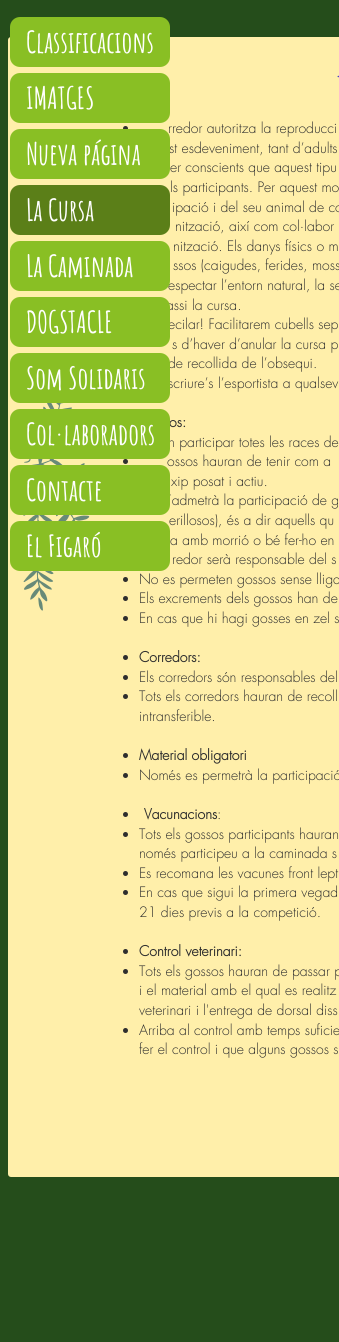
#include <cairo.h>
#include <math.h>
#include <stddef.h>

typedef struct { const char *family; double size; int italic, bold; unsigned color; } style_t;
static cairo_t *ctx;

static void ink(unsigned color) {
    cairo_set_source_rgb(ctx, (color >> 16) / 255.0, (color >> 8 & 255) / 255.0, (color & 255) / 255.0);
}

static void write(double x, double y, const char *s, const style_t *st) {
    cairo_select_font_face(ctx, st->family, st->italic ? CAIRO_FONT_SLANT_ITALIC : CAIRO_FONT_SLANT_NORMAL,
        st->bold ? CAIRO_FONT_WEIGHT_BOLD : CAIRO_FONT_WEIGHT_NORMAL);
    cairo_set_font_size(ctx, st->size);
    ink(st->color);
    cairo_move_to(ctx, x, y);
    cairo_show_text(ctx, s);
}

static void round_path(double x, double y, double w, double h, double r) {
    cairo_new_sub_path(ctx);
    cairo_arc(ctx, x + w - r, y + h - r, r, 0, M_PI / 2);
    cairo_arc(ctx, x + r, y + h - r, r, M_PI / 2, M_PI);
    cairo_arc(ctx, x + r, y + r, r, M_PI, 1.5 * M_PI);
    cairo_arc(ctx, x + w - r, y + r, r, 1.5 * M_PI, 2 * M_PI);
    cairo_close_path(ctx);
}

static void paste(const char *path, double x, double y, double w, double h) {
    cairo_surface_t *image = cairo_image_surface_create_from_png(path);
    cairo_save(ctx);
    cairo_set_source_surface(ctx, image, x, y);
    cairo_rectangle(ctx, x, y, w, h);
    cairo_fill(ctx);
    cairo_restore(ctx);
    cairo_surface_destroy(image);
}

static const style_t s1 = {"Amatic SC", 30, 0, 1, 0xffffff};
static const style_t s2 = {"futura Light", 14, 0, 0, 0x2e2e2e};
static const style_t s3 = {"futura", 14, 0, 1, 0x2e2e2e};

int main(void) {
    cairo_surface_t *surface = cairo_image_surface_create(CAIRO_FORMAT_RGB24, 339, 1342);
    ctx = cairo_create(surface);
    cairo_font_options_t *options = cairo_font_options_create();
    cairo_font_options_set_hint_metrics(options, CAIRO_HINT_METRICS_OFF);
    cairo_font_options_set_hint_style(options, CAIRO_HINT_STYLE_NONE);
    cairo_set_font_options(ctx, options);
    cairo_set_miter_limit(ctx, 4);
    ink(0x254d1b);
    cairo_paint(ctx);
    ink(0xffefaa);
    round_path(8, 37, 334, 1140, 3);
    cairo_fill(ctx);
    ink(0x89bf24);
    round_path(10, 17, 160, 50, 10);
    cairo_fill(ctx);
    write(26, 53, "Classificacions", &s1);
    write(168, 133, "rredor autoritza la reproducci", &s2);
    ink(0x89bf24);
    round_path(10, 73, 160, 50, 10);
    cairo_fill(ctx);
    write(26, 109, "IMATGES", &s1);
    ink(0x2e2e2e);
    cairo_new_path(ctx);
    cairo_arc(ctx, 125.5, 128.5, 2.5, 0, 2 * M_PI);
    cairo_fill(ctx);
    write(169, 153, "st esdeveniment, tant d’adults", &s2);
    ink(0x89bf24);
    round_path(10, 129, 160, 50, 10);
    cairo_fill(ctx);
    write(26, 165, "Nueva página", &s1);
    ink(0x5b7f18);
    round_path(10, 185, 160, 50, 10);
    cairo_fill(ctx);
    write(26, 221, "La Cursa", &s1);
    write(168, 290, "espectar l’entorn natural, la se", &s2);
    ink(0x89bf24);
    round_path(10, 241, 160, 50, 10);
    cairo_fill(ctx);
    write(26, 277, "La Caminada", &s1);
    write(166, 310, "assi la cursa.", &s2);
    write(168, 329, "ecilar! Facilitarem cubells sep", &s2);
    ink(0x89bf24);
    round_path(10, 297, 160, 50, 10);
    cairo_fill(ctx);
    write(26, 333, "DOGSTACLE", &s1);
    write(168, 368, "de recollida de l’obsequi.", &s2);
    write(168, 388, "scriure’s l’esportista a qualsev", &s2);
    ink(0x89bf24);
    round_path(10, 353, 160, 50, 10);
    cairo_fill(ctx);
    write(26, 389, "Som Solidaris", &s1);
    paste("pic2.png", 23, 403, 67, 208);
    write(169, 427, "os:", &s3);
    write(168, 447, "n participar totes les races de", &s2);
    write(167, 466, "ossos hauran de tenir com a", &s2);
    ink(0x89bf24);
    round_path(10, 409, 160, 50, 10);
    cairo_fill(ctx);
    write(26, 445, "Col·laboradors", &s1);
    write(168, 505, "’admetrà la participació de g", &s2);
    write(169, 525, "erillosos), és a dir aquells qu", &s2);
    ink(0x89bf24);
    round_path(10, 465, 160, 50, 10);
    cairo_fill(ctx);
    write(26, 501, "Contacte", &s1);
    ink(0x89bf24);
    round_path(10, 521, 160, 50, 10);
    cairo_fill(ctx);
    write(26, 557, "El Figaró", &s1);
    paste("pic1.png", 337, 75, 2, 3);
    write(170, 172, "er conscients que aquest tipu", &s2);
    write(170, 192, "ls participants. Per aquest mo", &s2);
    write(172, 212, "ipació i del seu animal de co", &s2);
    write(175, 231, "nització, així com col·labor", &s2);
    write(173, 251, "nització. Els danys físics o m", &s2);
    write(173, 270, "ssos (caigudes, ferides, moss", &s2);
    write(172, 349, "s d’haver d’anular la cursa p", &s2);
    cairo_new_path(ctx);
    cairo_arc(ctx, 125.5, 461.5, 2.5, 0, 2 * M_PI);
    cairo_fill(ctx);
    write(171, 486, "xip posat i actiu.", &s2);
    write(170, 545, "a amb morrió o bé fer-ho en", &s2);
    write(172, 564, "redor serà responsable del s", &s2);
    cairo_new_path(ctx);
    cairo_arc(ctx, 125.5, 579.5, 2.5, 0, 2 * M_PI);
    cairo_fill(ctx);
    write(139, 584, "No es permeten gossos sense lliga", &s2);
    cairo_new_path(ctx);
    cairo_arc(ctx, 125.5, 598.5, 2.5, 0, 2 * M_PI);
    cairo_fill(ctx);
    write(139, 603, "Els excrements dels gossos han de", &s2);
    cairo_new_path(ctx);
    cairo_arc(ctx, 125.5, 618.5, 2.5, 0, 2 * M_PI);
    cairo_fill(ctx);
    write(139, 623, "En cas que hi hagi gosses en zel s", &s2);
    cairo_new_path(ctx);
    cairo_arc(ctx, 125.5, 657.5, 2.5, 0, 2 * M_PI);
    cairo_fill(ctx);
    write(139, 662, "Corredors:", &s3);
    cairo_new_path(ctx);
    cairo_arc(ctx, 125.5, 677.5, 2.5, 0, 2 * M_PI);
    cairo_fill(ctx);
    write(139, 682, "Els corredors són responsables del", &s2);
    cairo_new_path(ctx);
    cairo_arc(ctx, 125.5, 696.5, 2.5, 0, 2 * M_PI);
    cairo_fill(ctx);
    write(139, 701, "Tots els corredors hauran de recoll", &s2);
    write(139, 721, "intransferible.", &s2);
    cairo_new_path(ctx);
    cairo_arc(ctx, 125.5, 755.5, 2.5, 0, 2 * M_PI);
    cairo_fill(ctx);
    write(139, 760, "Material obligatori", &s3);
    cairo_new_path(ctx);
    cairo_arc(ctx, 125.5, 775.5, 2.5, 0, 2 * M_PI);
    cairo_fill(ctx);
    write(139, 780, "Només es permetrà la participació", &s2);
    cairo_new_path(ctx);
    cairo_arc(ctx, 125.5, 814.5, 2.5, 0, 2 * M_PI);
    cairo_fill(ctx);
    write(144, 819, "Vacunacions", &s3);
    write(217, 819, ":", &s2);
    cairo_new_path(ctx);
    cairo_arc(ctx, 125.5, 834.5, 2.5, 0, 2 * M_PI);
    cairo_fill(ctx);
    write(139, 839, "Tots els gossos participants hauran", &s2);
    write(139, 858, "només participeu a la caminada s", &s2);
    cairo_new_path(ctx);
    cairo_arc(ctx, 125.5, 873.5, 2.5, 0, 2 * M_PI);
    cairo_fill(ctx);
    write(139, 878, "Es recomana les vacunes front lept", &s2);
    cairo_new_path(ctx);
    cairo_arc(ctx, 125.5, 892.5, 2.5, 0, 2 * M_PI);
    cairo_fill(ctx);
    write(139, 897, "En cas que sigui la primera vegad", &s2);
    write(139, 917, "21 dies previs a la competició.", &s2);
    cairo_new_path(ctx);
    cairo_arc(ctx, 125.5, 951.5, 2.5, 0, 2 * M_PI);
    cairo_fill(ctx);
    write(139, 956, "Control veterinari:", &s3);
    cairo_new_path(ctx);
    cairo_arc(ctx, 125.5, 971.5, 2.5, 0, 2 * M_PI);
    cairo_fill(ctx);
    write(139, 976, "Tots els gossos hauran de passar p", &s2);
    write(139, 995, "i el material amb el qual es realitz", &s2);
    write(139, 1015, "veterinari i l'entrega de dorsal diss", &s2);
    cairo_new_path(ctx);
    cairo_arc(ctx, 125.5, 1030.5, 2.5, 0, 2 * M_PI);
    cairo_fill(ctx);
    write(139, 1035, "Arriba al control amb temps suficie", &s2);
    write(139, 1054, "fer el control i que alguns gossos s", &s2);
    cairo_surface_write_to_png(surface, "screenshot.png");
    cairo_font_options_destroy(options);
    cairo_destroy(ctx);
    cairo_surface_destroy(surface);
    return 0;
}
